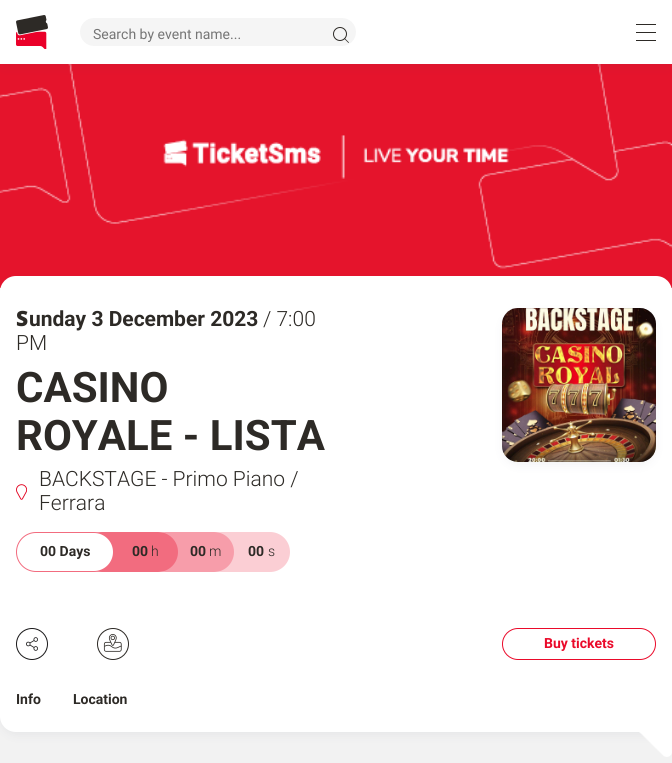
#include <cairo.h>
#include <math.h>
#include <stddef.h>

typedef struct { const char *family; double size; int italic, bold; unsigned color; } style_t;
static cairo_t *ctx;

static void ink(unsigned color) {
    cairo_set_source_rgb(ctx, (color >> 16) / 255.0, (color >> 8 & 255) / 255.0, (color & 255) / 255.0);
}

static void write(double x, double y, const char *s, const style_t *st) {
    cairo_select_font_face(ctx, st->family, st->italic ? CAIRO_FONT_SLANT_ITALIC : CAIRO_FONT_SLANT_NORMAL,
        st->bold ? CAIRO_FONT_WEIGHT_BOLD : CAIRO_FONT_WEIGHT_NORMAL);
    cairo_set_font_size(ctx, st->size);
    ink(st->color);
    cairo_move_to(ctx, x, y);
    cairo_show_text(ctx, s);
}

static void block(double x, double y, double w, double h, unsigned color) {
    ink(color);
    cairo_rectangle(ctx, x, y, w, h);
    cairo_fill(ctx);
}

static void round_path(double x, double y, double w, double h, double r) {
    cairo_new_sub_path(ctx);
    cairo_arc(ctx, x + w - r, y + h - r, r, 0, M_PI / 2);
    cairo_arc(ctx, x + r, y + h - r, r, M_PI / 2, M_PI);
    cairo_arc(ctx, x + r, y + r, r, M_PI, 1.5 * M_PI);
    cairo_arc(ctx, x + w - r, y + r, r, 1.5 * M_PI, 2 * M_PI);
    cairo_close_path(ctx);
}

static void blur_box(double x, double y, double w, double h, double r, double blur, double alpha) {
    cairo_push_group_with_content(ctx, CAIRO_CONTENT_ALPHA);
    cairo_set_operator(ctx, CAIRO_OPERATOR_SOURCE);
    for (int i = 15; i >= -15 && fmin(w, h) + blur * i / 3 > 0; i -= 2) {
        double e = blur * i / 6;
        cairo_set_source_rgba(ctx, 0, 0, 0, alpha * erfc((i - 1) / 8.5) / 2);
        round_path(x - e, y - e, w + 2 * e, h + 2 * e, fmax(0, fmin(r + e + blur * .6, fmin(w, h) / 2 + e)));
        cairo_fill(ctx);
    }
    cairo_pattern_t *soft = cairo_pop_group(ctx);
    cairo_mask(ctx, soft);
    cairo_pattern_destroy(soft);
}

static void paste(const char *path, double x, double y, double w, double h) {
    cairo_surface_t *image = cairo_image_surface_create_from_png(path);
    cairo_save(ctx);
    cairo_set_source_surface(ctx, image, x, y);
    cairo_rectangle(ctx, x, y, w, h);
    cairo_fill(ctx);
    cairo_restore(ctx);
    cairo_surface_destroy(image);
}

static const style_t s1 = {"Roboto", 14, 0, 0, 0x757575};
static const style_t s2 = {"Noto Sans Black", 21, 0, 0, 0x2d2a26};
static const style_t s3 = {"Roboto", 21, 0, 1, 0x2d2a26};
static const style_t s4 = {"Roboto Light", 21, 0, 0, 0x2d2a26};
static const style_t s5 = {"Roboto", 42, 0, 1, 0x2d2a26};
static const style_t s6 = {"Roboto", 14, 0, 1, 0x2d2a26};
static const style_t s7 = {"Roboto Light", 14, 0, 0, 0x2d2a26};
static const style_t s8 = {"Roboto", 14, 0, 1, 0xea0a2a};

int main(void) {
    cairo_surface_t *surface = cairo_image_surface_create(CAIRO_FORMAT_RGB24, 672, 763);
    ctx = cairo_create(surface);
    cairo_font_options_t *options = cairo_font_options_create();
    cairo_font_options_set_hint_metrics(options, CAIRO_HINT_METRICS_OFF);
    cairo_font_options_set_hint_style(options, CAIRO_HINT_STYLE_NONE);
    cairo_set_font_options(ctx, options);
    cairo_set_miter_limit(ctx, 4);
    ink(0xf2f2f2);
    cairo_paint(ctx);
    paste("pic2.png", 0, 64, 672, 224);
    ink(0x2e374d);
    blur_box(4, 8, 664, 56, 0, 6, 0.1);
    block(0, 0, 672, 64, 0xffffff);
    paste("pic1.png", 16, 15, 32, 34);
    ink(0xf5f5f5);
    round_path(80, 18, 276, 28, 14);
    cairo_fill(ctx);
    write(93, 39, "Search by event name...", &s1);
    cairo_new_path(ctx);
    cairo_arc(ctx, 340, 34, 6.5, 0, 2 * M_PI);
    ink(0x2d2a26);
    cairo_set_line_width(ctx, 1);
    cairo_stroke(ctx);
    cairo_new_path(ctx);
    cairo_move_to(ctx, 344.5, 38);
    cairo_line_to(ctx, 349, 42.5);
    cairo_line_to(ctx, 348.5, 43);
    cairo_line_to(ctx, 344, 38.5);
    cairo_close_path(ctx);
    cairo_fill(ctx);
    block(636, 24, 20, 1, 0x2d2a26);
    block(636, 32, 20, 1, 0x2d2a26);
    block(636, 40, 20, 1, 0x2d2a26);
    ink(0x2e374d);
    blur_box(4, 284, 664, 448, 12, 6, 0.1);
    ink(0xffffff);
    cairo_new_path(ctx);
    cairo_move_to(ctx, 16, 276);
    cairo_line_to(ctx, 656, 276);
    cairo_curve_to(ctx, 665, 276, 672, 283, 672, 292);
    cairo_line_to(ctx, 672, 732);
    cairo_line_to(ctx, 16, 732);
    cairo_curve_to(ctx, 7, 732, 0, 725, 0, 716);
    cairo_line_to(ctx, 0, 292);
    cairo_curve_to(ctx, 0, 283, 7, 276, 16, 276);
    cairo_close_path(ctx);
    cairo_fill(ctx);
    write(16, 326, "S", &s2);
    write(29, 326, "unday 3 December 2023", &s3);
    write(263, 326, "/ 7:00", &s4);
    write(16, 350, "PM", &s4);
    write(16, 402, "CASINO", &s5);
    write(16, 450, "ROYALE - LISTA", &s5);
    paste("pic3.png", 16, 484, 11, 16);
    write(39, 486, "BACKSTAGE - Primo Piano /", &s4);
    write(39, 510, "Ferrara", &s4);
    ink(0xfbced4);
    round_path(202, 532, 88, 40, 20);
    cairo_fill(ctx);
    ink(0xf79daa);
    round_path(146, 532, 88, 40, 20);
    cairo_fill(ctx);
    ink(0xf26c7f);
    round_path(82, 532, 96, 40, 20);
    cairo_fill(ctx);
    round_path(16, 532, 98, 40, 20);
    cairo_fill(ctx);
    ink(0xffffff);
    round_path(17, 533, 96, 38, 19);
    cairo_fill(ctx);
    write(40, 556, "00 Days", &s6);
    write(132, 556, "00", &s6);
    write(151, 556, "h", &s7);
    write(190, 556, "00", &s6);
    write(209, 556, "m", &s7);
    write(248, 556, "00", &s6);
    write(268, 556, "s", &s7);
    ink(0x2e374d);
    blur_box(506, 316, 146, 146, 12, 6, 0.1);
    paste("pic4.png", 502, 308, 154, 154);
    paste("pic5.png", 16, 628, 32, 32);
    paste("pic6.png", 97, 628, 32, 32);
    round_path(502.5, 628.5, 153, 31, 15.5);
    ink(0xea0a2a);
    cairo_stroke(ctx);
    write(544, 648, "Buy tickets", &s8);
    write(16, 704, "Info", &s6);
    write(73, 704, "Location", &s6);
    paste("pic7.png", 639, 732, 33, 25);
    cairo_surface_write_to_png(surface, "screenshot.png");
    cairo_font_options_destroy(options);
    cairo_destroy(ctx);
    cairo_surface_destroy(surface);
    return 0;
}
